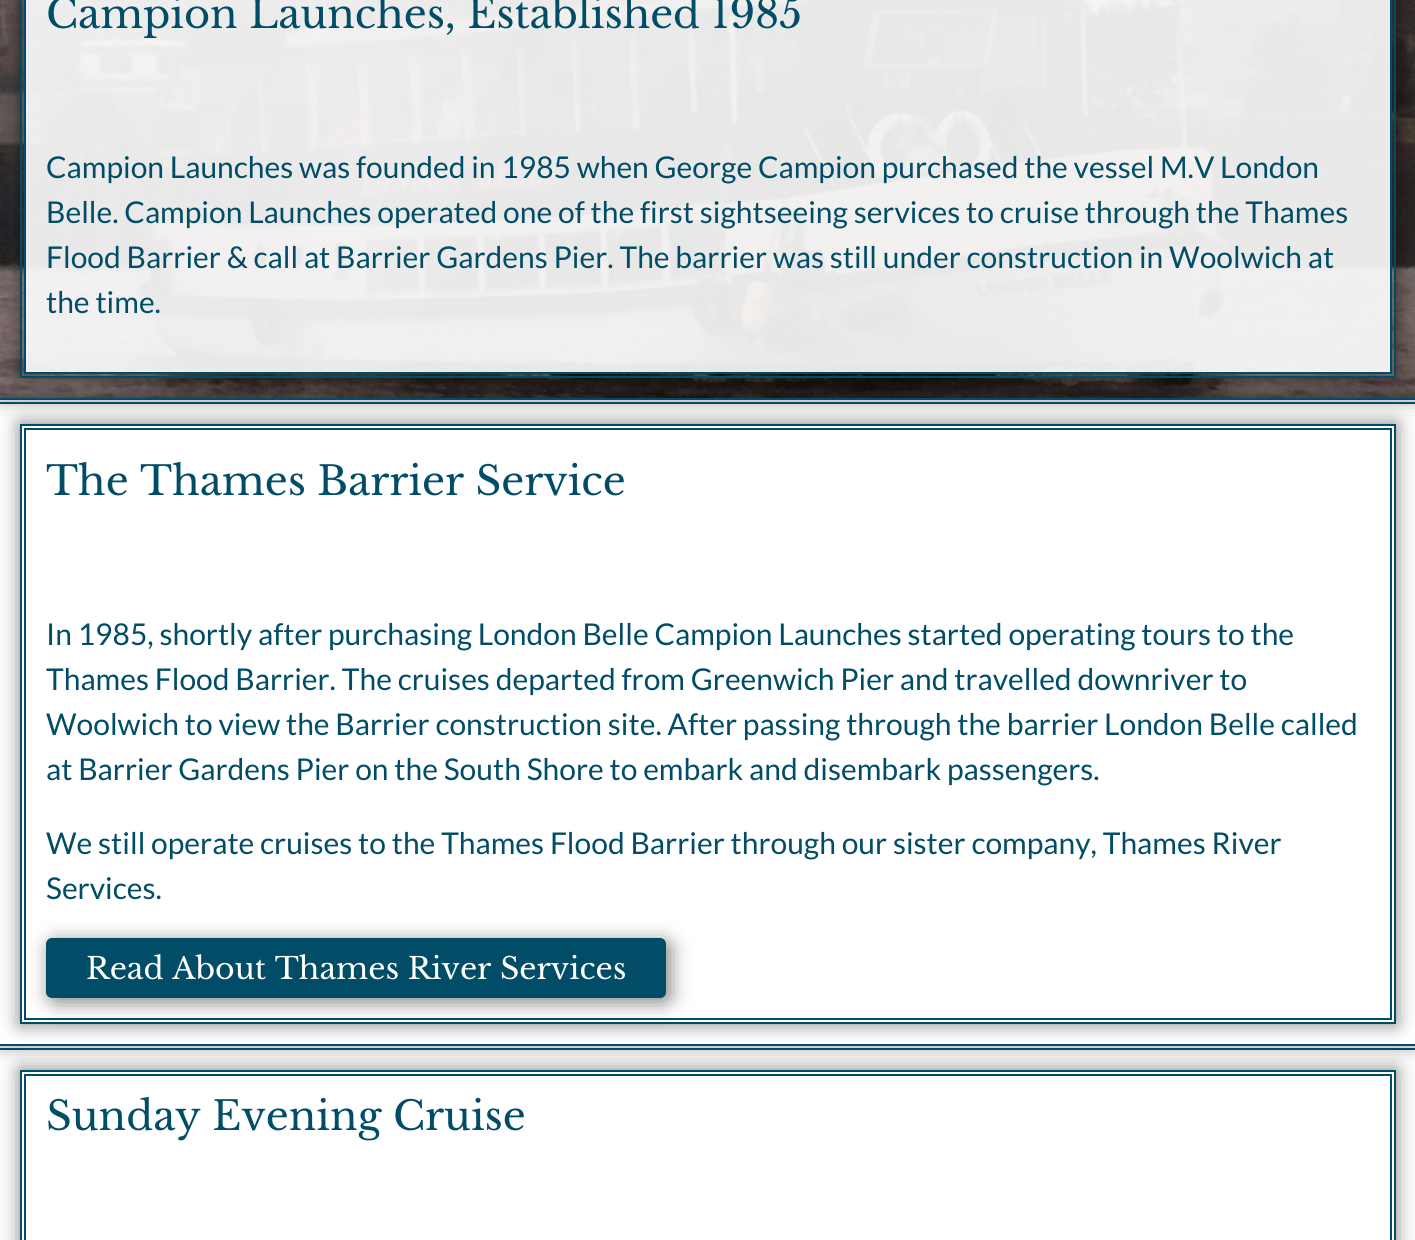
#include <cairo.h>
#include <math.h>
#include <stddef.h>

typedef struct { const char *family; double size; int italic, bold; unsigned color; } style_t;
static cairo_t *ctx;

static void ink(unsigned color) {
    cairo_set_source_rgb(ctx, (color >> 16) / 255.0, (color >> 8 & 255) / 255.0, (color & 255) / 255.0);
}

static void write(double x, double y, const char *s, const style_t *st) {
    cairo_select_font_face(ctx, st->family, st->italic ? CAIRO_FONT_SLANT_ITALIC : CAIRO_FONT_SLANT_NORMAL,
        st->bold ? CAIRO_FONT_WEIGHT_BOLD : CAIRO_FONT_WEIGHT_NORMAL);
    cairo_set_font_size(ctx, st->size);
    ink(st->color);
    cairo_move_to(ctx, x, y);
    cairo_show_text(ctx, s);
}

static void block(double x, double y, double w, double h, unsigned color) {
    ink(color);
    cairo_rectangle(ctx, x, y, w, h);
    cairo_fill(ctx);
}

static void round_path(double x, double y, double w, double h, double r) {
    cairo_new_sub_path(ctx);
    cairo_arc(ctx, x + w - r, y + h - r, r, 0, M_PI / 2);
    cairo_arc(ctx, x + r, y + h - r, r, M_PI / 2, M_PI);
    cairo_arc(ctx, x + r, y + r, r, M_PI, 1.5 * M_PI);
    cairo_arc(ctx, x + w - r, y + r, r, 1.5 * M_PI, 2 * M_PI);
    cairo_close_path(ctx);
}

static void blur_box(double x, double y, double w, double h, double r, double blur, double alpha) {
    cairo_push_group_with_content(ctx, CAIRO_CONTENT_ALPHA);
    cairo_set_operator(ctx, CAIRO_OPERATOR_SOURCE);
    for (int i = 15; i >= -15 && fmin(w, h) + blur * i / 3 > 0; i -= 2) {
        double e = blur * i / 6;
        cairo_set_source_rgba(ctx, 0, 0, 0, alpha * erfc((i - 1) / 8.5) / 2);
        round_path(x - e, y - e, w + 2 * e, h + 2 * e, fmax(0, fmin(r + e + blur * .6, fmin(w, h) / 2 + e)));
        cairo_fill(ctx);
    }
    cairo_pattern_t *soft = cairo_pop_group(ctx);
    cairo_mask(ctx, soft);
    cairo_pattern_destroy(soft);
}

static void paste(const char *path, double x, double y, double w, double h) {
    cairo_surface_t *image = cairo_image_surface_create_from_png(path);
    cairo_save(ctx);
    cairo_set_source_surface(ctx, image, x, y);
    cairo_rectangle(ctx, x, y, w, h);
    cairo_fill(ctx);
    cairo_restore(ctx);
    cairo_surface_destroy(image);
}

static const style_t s1 = {"Libre Baskerville", 40, 0, 0, 0x014d67};
static const style_t s2 = {"Lato", 30, 0, 0, 0x014d67};
static const style_t s3 = {"Libre Baskerville", 30, 0, 0, 0xffffff};

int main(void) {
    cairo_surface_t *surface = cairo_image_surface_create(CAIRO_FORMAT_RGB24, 1415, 1240);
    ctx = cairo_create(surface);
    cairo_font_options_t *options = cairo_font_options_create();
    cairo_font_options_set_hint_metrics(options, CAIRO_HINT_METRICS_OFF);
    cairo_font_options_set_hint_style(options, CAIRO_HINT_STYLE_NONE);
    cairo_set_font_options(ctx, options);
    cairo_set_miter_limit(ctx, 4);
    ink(0xffffff);
    cairo_paint(ctx);
    ink(0x000000);
    blur_box(0, -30, 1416, 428, 0, 10, 0.5);
    paste("pic1.png", 0, 0, 1415, 398);
    cairo_save(ctx);
    cairo_set_fill_rule(ctx, CAIRO_FILL_RULE_EVEN_ODD);
    cairo_new_path(ctx);
    cairo_move_to(ctx, 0, 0);
    cairo_line_to(ctx, 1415, 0);
    cairo_line_to(ctx, 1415, 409);
    cairo_line_to(ctx, 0, 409);
    cairo_close_path(ctx);
    cairo_move_to(ctx, 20, -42);
    cairo_line_to(ctx, 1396, -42);
    cairo_line_to(ctx, 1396, 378);
    cairo_line_to(ctx, 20, 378);
    cairo_close_path(ctx);
    cairo_clip(ctx);
    blur_box(20, -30, 1376, 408, 0, 10, 0.5);
    cairo_restore(ctx);
    cairo_rectangle(ctx, 21, -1, 1374, 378);
    ink(0x014d67);
    cairo_stroke(ctx);
    cairo_rectangle(ctx, 25, -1, 1366, 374);
    cairo_stroke(ctx);
    write(46, 28, "Campion Launches, Established 1985", &s1);
    write(46, 178, "Campion Launches was founded in 1985 when George Campion purchased the vessel M.V London", &s2);
    write(46, 223, "Belle. Campion Launches operated one of the first sightseeing services to cruise through the Thames", &s2);
    write(46, 268, "Flood Barrier & call at Barrier Gardens Pier. The barrier was still under construction in Woolwich at", &s2);
    write(46, 313, "the time.", &s2);
    cairo_save(ctx);
    cairo_set_fill_rule(ctx, CAIRO_FILL_RULE_EVEN_ODD);
    cairo_new_path(ctx);
    cairo_move_to(ctx, 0, 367);
    cairo_line_to(ctx, 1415, 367);
    cairo_line_to(ctx, 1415, 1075);
    cairo_line_to(ctx, 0, 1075);
    cairo_close_path(ctx);
    cairo_move_to(ctx, 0, 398);
    cairo_line_to(ctx, 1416, 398);
    cairo_line_to(ctx, 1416, 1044);
    cairo_line_to(ctx, 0, 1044);
    cairo_close_path(ctx);
    cairo_clip(ctx);
    ink(0x000000);
    blur_box(0, 398, 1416, 646, 0, 10, 0.5);
    cairo_restore(ctx);
    block(0, 398, 1415, 2, 0x014d67);
    block(0, 402, 1415, 2, 0x014d67);
    cairo_save(ctx);
    cairo_set_fill_rule(ctx, CAIRO_FILL_RULE_EVEN_ODD);
    cairo_new_path(ctx);
    cairo_move_to(ctx, 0, 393);
    cairo_line_to(ctx, 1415, 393);
    cairo_line_to(ctx, 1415, 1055);
    cairo_line_to(ctx, 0, 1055);
    cairo_close_path(ctx);
    cairo_move_to(ctx, 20, 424);
    cairo_line_to(ctx, 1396, 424);
    cairo_line_to(ctx, 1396, 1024);
    cairo_line_to(ctx, 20, 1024);
    cairo_close_path(ctx);
    cairo_clip(ctx);
    ink(0x000000);
    blur_box(20, 424, 1376, 600, 0, 10, 0.5);
    cairo_restore(ctx);
    cairo_rectangle(ctx, 21, 425, 1374, 598);
    cairo_stroke(ctx);
    cairo_rectangle(ctx, 25, 429, 1366, 590);
    cairo_stroke(ctx);
    write(46, 495, "The Thames Barrier Service", &s1);
    write(46, 645, "In 1985, shortly after purchasing London Belle Campion Launches started operating tours to the", &s2);
    write(46, 690, "Thames Flood Barrier. The cruises departed from Greenwich Pier and travelled downriver to", &s2);
    write(46, 735, "Woolwich to view the Barrier construction site. After passing through the barrier London Belle called", &s2);
    write(46, 780, "at Barrier Gardens Pier on the South Shore to embark and disembark passengers.", &s2);
    write(46, 854, "We still operate cruises to the Thames Flood Barrier through our sister company, Thames River", &s2);
    write(46, 899, "Services.", &s2);
    ink(0x000000);
    blur_box(50, 942, 620, 60, 6, 10, 0.5);
    ink(0x014d67);
    round_path(46, 938, 620, 60, 6);
    cairo_fill(ctx);
    write(86, 979, "Read About Thames River Services", &s3);
    block(0, 1044, 1415, 2, 0x014d67);
    block(0, 1048, 1415, 2, 0x014d67);
    cairo_save(ctx);
    cairo_set_fill_rule(ctx, CAIRO_FILL_RULE_EVEN_ODD);
    cairo_new_path(ctx);
    cairo_move_to(ctx, 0, 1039);
    cairo_line_to(ctx, 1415, 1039);
    cairo_line_to(ctx, 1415, 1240);
    cairo_line_to(ctx, 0, 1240);
    cairo_close_path(ctx);
    cairo_move_to(ctx, 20, 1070);
    cairo_line_to(ctx, 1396, 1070);
    cairo_line_to(ctx, 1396, 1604);
    cairo_line_to(ctx, 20, 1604);
    cairo_close_path(ctx);
    cairo_clip(ctx);
    ink(0x000000);
    blur_box(20, 1070, 1376, 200, 0, 10, 0.5);
    cairo_restore(ctx);
    cairo_rectangle(ctx, 21, 1071, 1374, 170);
    cairo_stroke(ctx);
    cairo_rectangle(ctx, 25, 1075, 1366, 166);
    cairo_stroke(ctx);
    write(46, 1130, "Sunday Evening Cruise", &s1);
    cairo_surface_write_to_png(surface, "screenshot.png");
    cairo_font_options_destroy(options);
    cairo_destroy(ctx);
    cairo_surface_destroy(surface);
    return 0;
}
